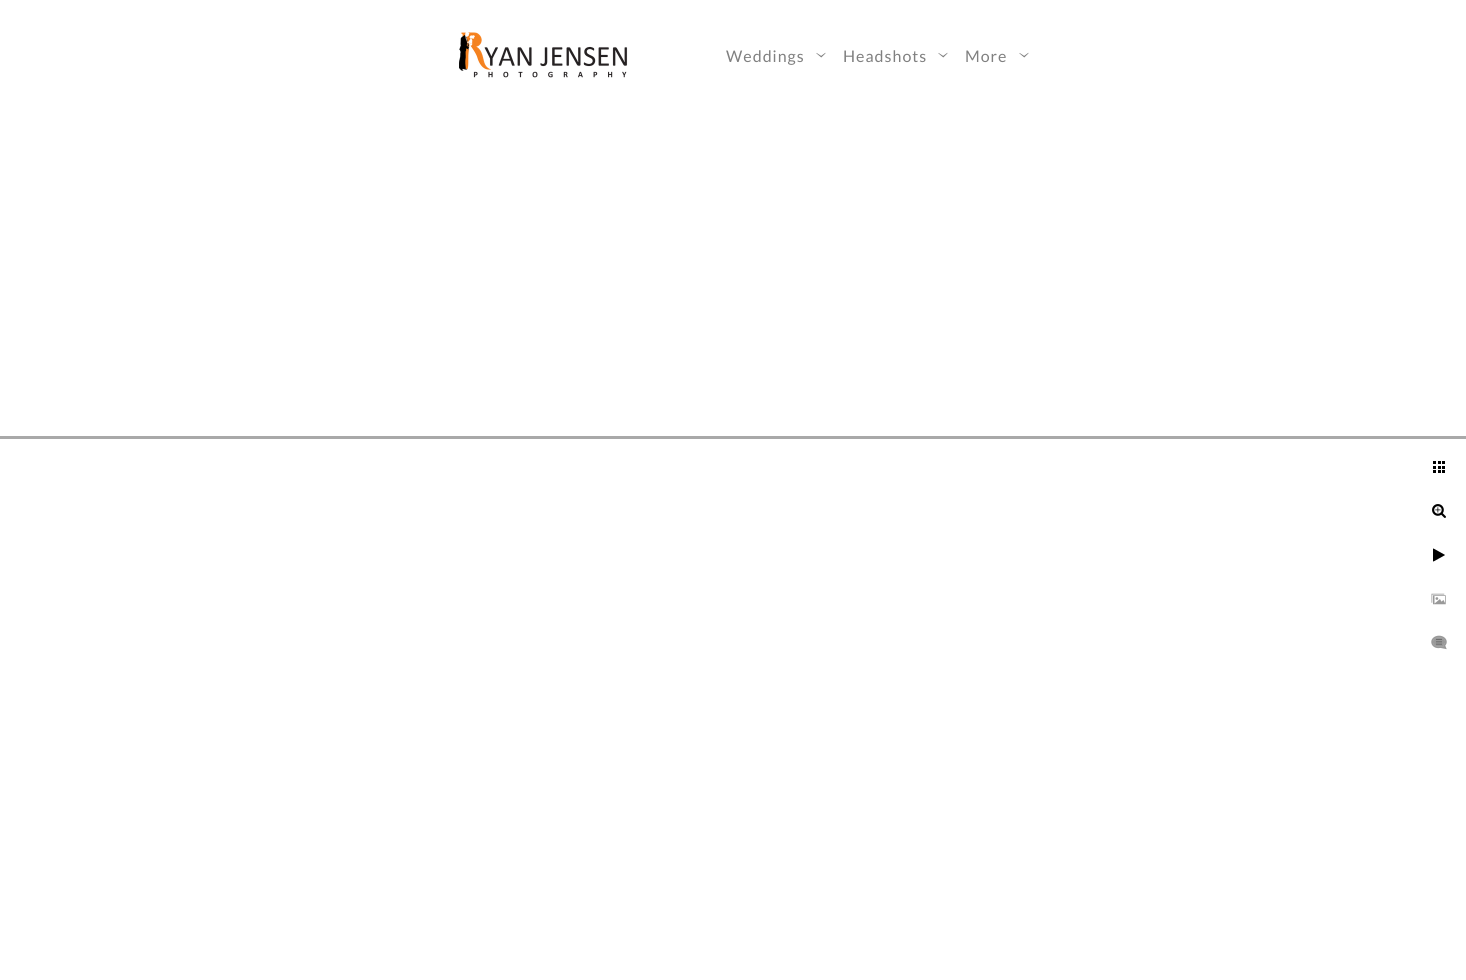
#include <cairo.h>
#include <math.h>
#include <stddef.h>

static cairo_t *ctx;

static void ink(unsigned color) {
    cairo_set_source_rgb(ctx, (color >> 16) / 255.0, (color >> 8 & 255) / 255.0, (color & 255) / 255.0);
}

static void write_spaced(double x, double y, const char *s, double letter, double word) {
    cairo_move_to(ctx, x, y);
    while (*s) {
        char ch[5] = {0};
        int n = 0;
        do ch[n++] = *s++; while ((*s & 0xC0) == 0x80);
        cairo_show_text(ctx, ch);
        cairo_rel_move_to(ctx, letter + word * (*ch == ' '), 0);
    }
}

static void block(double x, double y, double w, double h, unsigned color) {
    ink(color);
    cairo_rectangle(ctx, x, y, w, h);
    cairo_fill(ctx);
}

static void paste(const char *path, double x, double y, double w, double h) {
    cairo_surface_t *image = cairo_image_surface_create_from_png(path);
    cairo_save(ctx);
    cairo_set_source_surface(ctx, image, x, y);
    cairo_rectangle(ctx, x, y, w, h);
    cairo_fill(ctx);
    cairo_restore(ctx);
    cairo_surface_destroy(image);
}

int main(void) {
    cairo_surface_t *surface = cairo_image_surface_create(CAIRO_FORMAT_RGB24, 1466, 980);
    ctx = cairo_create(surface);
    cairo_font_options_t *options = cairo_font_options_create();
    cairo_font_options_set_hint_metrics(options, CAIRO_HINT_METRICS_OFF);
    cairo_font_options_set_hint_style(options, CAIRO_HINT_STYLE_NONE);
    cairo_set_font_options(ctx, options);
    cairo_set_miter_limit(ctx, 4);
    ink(0xffffff);
    cairo_paint(ctx);
    paste("pic1.png", 459, 32, 169, 46);
    cairo_select_font_face(ctx, "Lato", CAIRO_FONT_SLANT_NORMAL, CAIRO_FONT_WEIGHT_NORMAL);
    cairo_set_font_size(ctx, 16);
    ink(0x808080);
    write_spaced(726, 62, "Weddings", 1, 0);
    paste("pic2.png", 816, 52, 10, 6);
    write_spaced(843, 62, "Headshots", 1, 0);
    paste("pic2.png", 938, 52, 10, 6);
    write_spaced(965, 62, "More", 1, 0);
    paste("pic2.png", 1019, 52, 10, 6);
    block(0, 436, 1466, 3, 0xa9a9a9);
    paste("pic3.png", 1433, 461, 12, 12);
    paste("pic4.png", 1432, 504, 14, 14);
    paste("pic5.png", 1433, 548, 12, 14);
    paste("pic6.png", 1431, 593, 15, 12);
    paste("pic7.png", 1431, 635, 16, 15);
    cairo_surface_write_to_png(surface, "screenshot.png");
    cairo_font_options_destroy(options);
    cairo_destroy(ctx);
    cairo_surface_destroy(surface);
    return 0;
}
